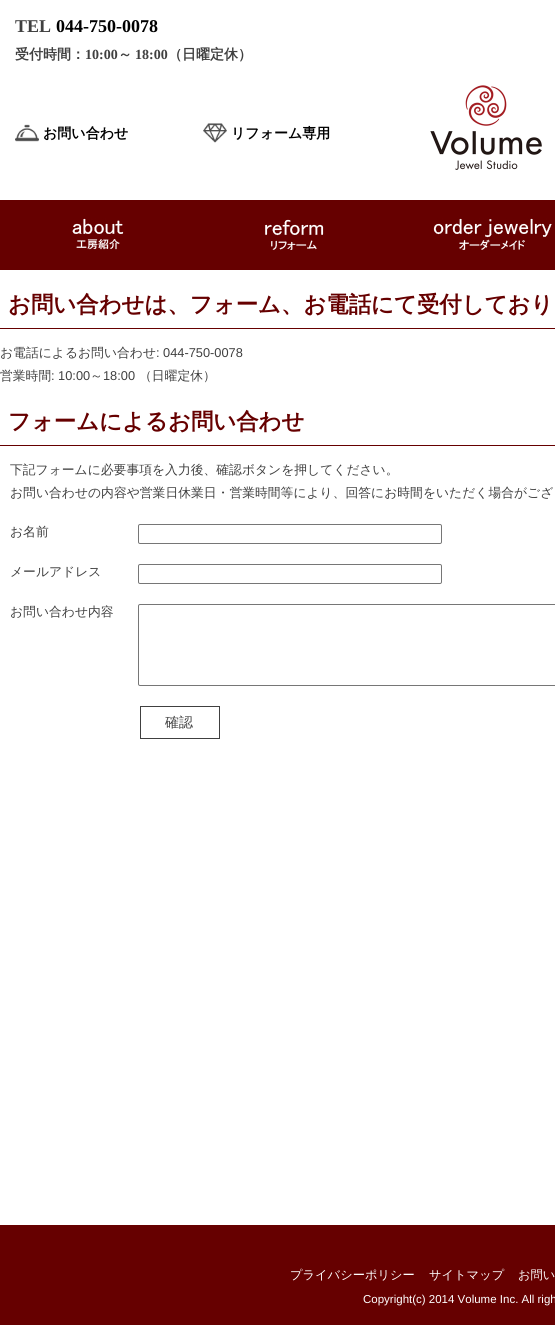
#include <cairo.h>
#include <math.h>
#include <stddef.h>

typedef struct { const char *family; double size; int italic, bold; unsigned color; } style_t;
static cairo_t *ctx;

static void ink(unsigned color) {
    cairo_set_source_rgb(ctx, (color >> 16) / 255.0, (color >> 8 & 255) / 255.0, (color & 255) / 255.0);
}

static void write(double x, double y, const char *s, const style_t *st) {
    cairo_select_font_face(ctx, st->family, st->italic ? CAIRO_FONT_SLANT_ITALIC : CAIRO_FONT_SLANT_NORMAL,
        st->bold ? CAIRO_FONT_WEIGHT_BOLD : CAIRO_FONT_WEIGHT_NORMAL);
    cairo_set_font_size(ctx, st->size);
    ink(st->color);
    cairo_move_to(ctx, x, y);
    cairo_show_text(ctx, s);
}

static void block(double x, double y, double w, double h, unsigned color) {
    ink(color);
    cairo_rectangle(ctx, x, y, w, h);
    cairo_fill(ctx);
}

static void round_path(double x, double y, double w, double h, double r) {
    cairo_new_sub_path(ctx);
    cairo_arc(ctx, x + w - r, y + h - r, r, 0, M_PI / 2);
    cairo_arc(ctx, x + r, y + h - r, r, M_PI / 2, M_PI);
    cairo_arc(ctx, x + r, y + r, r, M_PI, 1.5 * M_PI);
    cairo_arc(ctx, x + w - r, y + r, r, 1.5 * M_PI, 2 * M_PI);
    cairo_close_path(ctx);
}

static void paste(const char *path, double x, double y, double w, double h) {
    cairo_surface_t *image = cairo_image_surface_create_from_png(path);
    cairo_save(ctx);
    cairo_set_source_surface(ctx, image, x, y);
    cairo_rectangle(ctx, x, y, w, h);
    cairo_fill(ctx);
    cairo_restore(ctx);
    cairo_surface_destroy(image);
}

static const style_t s1 = {"Liberation Serif", 18, 0, 1, 0x404040};
static const style_t s2 = {"Liberation Serif", 18, 0, 1, 0x000000};
static const style_t s3 = {"WenQuanYi Zen Hei", 14, 0, 1, 0x404040};
static const style_t s4 = {"Liberation Serif", 14, 0, 1, 0x404040};
static const style_t s5 = {"WenQuanYi Zen Hei", 14, 0, 1, 0x000000};
static const style_t s6 = {"WenQuanYi Zen Hei", 22.4, 0, 1, 0x660000};
static const style_t s7 = {"WenQuanYi Zen Hei Medium", 12.8, 0, 0, 0x404040};
static const style_t s8 = {"Liberation Sans", 12.8, 0, 0, 0x404040};
static const style_t s9 = {"WenQuanYi Zen Hei Medium", 14, 0, 0, 0x404040};
static const style_t s10 = {"WenQuanYi Zen Hei Medium", 12.25, 0, 0, 0xffffff};
static const style_t s11 = {"Liberation Sans", 11.5, 0, 0, 0xffffff};

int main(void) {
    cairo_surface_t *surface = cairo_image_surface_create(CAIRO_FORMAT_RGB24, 555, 1325);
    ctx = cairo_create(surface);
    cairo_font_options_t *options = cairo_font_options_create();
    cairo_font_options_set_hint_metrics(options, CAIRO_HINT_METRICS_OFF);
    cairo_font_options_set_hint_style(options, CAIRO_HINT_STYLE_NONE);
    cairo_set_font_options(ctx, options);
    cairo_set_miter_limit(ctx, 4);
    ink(0xffffff);
    cairo_paint(ctx);
    block(0, 200, 555, 70, 0x660000);
    write(15, 32, "TEL", &s1);
    write(56, 32, "044-750-0078", &s2);
    write(15, 59, "受付時間：", &s3);
    write(85, 59, "10:00", &s4);
    write(118, 59, "～", &s3);
    write(135, 59, "18:00", &s4);
    write(168, 59, "（日曜定休）", &s3);
    paste("pic1.png", 15, 124, 24, 18);
    write(43, 138, "お問い合わせ", &s5);
    paste("pic2.png", 203, 123, 24, 20);
    write(231, 138, "リフォーム専用", &s5);
    paste("pic3.png", 430, 85, 112, 85);
    paste("pic4.png", 72, 218, 52, 32);
    paste("pic5.png", 265, 219, 59, 31);
    paste("pic6.png", 433, 218, 119, 32);
    block(0, 328, 555, 1, 0x660000);
    write(8, 312, "お問い合わせは、フォーム、お電話にて受付しており", &s6);
    write(0, 357, "お電話によるお問い合わせ", &s7);
    write(156, 357, ": 044-750-0078", &s8);
    write(0, 380, "営業時間", &s7);
    write(51, 380, ": 10:00", &s8);
    write(90, 380, "～", &s7);
    write(103, 380, "18:00", &s8);
    write(139, 380, "（日曜定休）", &s7);
    block(0, 445, 555, 1, 0x660000);
    write(8, 429, "フォームによるお問い合わせ", &s6);
    write(10, 474, "下記フォームに必要事項を入力後、確認ボタンを押してください。", &s7);
    write(10, 497, "お問い合わせの内容や営業日休業日・営業時間等により、回答にお時間をいただく場合がござ", &s7);
    write(10, 536, "お名前", &s7);
    round_path(138.5, 524.5, 303, 19, 1.5);
    ink(0x767676);
    cairo_set_line_width(ctx, 1);
    cairo_stroke(ctx);
    write(10, 576, "メールアドレス", &s7);
    round_path(138.5, 564.5, 303, 19, 1.5);
    ink(0x767676);
    cairo_stroke(ctx);
    write(10, 616, "お問い合わせ内容", &s7);
    round_path(138.5, 604.5, 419, 81, 1.5);
    ink(0x767676);
    cairo_stroke(ctx);
    cairo_rectangle(ctx, 140.5, 706.5, 79, 32);
    ink(0x404040);
    cairo_stroke(ctx);
    write(165, 727, "確認", &s9);
    block(0, 1225, 555, 100, 0x660000);
    write(290, 1279, "プライバシーポリシー", &s10);
    write(429, 1279, "サイトマップ", &s10);
    write(518, 1279, "お問い", &s10);
    write(363, 1303, "Copyright(c) 2014 Volume Inc. All righ", &s11);
    cairo_surface_write_to_png(surface, "screenshot.png");
    cairo_font_options_destroy(options);
    cairo_destroy(ctx);
    cairo_surface_destroy(surface);
    return 0;
}
